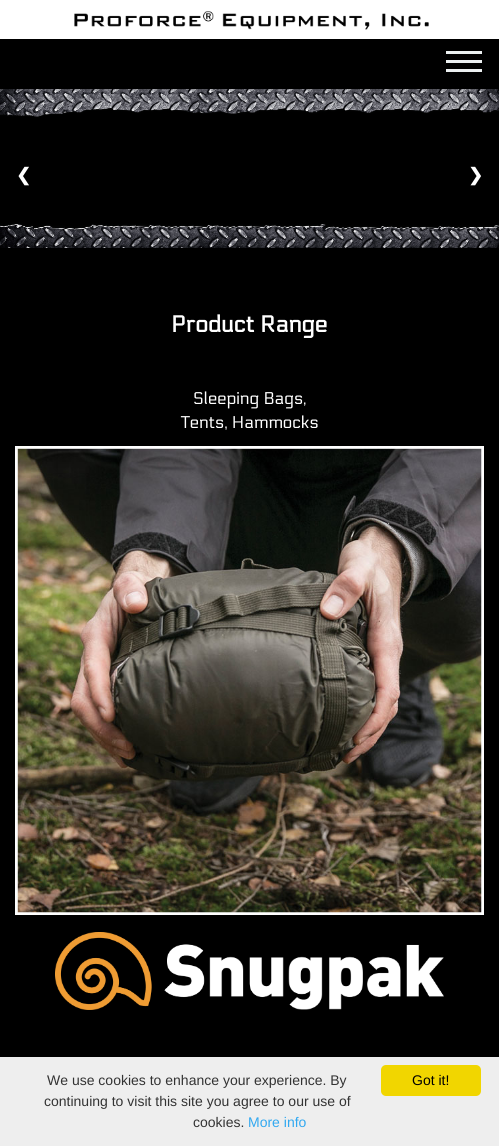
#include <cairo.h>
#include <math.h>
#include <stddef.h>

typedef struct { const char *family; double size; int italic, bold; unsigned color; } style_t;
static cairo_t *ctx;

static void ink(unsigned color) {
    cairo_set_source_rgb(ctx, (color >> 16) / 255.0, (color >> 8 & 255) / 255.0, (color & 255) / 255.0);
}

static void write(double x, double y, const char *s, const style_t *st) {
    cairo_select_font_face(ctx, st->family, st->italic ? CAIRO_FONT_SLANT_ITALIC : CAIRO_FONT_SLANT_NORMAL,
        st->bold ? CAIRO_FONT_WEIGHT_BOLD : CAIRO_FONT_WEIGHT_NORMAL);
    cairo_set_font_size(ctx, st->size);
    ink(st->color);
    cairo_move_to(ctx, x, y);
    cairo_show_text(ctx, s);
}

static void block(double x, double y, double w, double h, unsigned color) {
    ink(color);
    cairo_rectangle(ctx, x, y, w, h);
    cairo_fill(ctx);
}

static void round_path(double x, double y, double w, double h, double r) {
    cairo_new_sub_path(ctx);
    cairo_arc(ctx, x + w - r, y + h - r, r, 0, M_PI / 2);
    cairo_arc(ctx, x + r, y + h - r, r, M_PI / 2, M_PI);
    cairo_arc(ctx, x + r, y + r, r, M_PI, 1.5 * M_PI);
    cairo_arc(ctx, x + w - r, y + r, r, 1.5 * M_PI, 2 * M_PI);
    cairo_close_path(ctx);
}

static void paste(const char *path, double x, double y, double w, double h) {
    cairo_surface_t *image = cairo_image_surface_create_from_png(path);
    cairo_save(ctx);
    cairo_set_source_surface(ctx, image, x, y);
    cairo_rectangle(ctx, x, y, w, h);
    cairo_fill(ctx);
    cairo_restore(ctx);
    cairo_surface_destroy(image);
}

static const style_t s1 = {"DejaVu Sans", 18, 0, 1, 0xffffff};
static const style_t s2 = {"Electrolize", 23, 0, 1, 0xffffff};
static const style_t s3 = {"Electrolize", 17, 0, 0, 0xffffff};
static const style_t s4 = {"Liberation Sans", 14, 0, 0, 0x333333};
static const style_t s5 = {"Liberation Sans", 14, 0, 0, 0x31a8f0};
static const style_t s6 = {"Liberation Sans", 14, 0, 0, 0x000000};

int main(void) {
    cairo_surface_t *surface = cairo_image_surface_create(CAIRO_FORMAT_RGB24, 499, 1146);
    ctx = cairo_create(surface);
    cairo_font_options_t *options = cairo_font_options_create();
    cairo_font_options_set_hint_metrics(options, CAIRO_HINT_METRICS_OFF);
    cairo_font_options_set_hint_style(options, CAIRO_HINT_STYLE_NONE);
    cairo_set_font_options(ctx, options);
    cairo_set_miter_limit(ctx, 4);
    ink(0x000000);
    cairo_paint(ctx);
    block(0, 0, 499, 39, 0xffffff);
    paste("pic1.png", 74, 11, 355, 19);
    block(446, 51, 36, 3, 0xecf0f1);
    block(446, 60, 36, 3, 0xecf0f1);
    block(446, 69, 36, 3, 0xecf0f1);
    write(16, 181, "❮", &s1);
    write(468, 181, "❯", &s1);
    paste("pic2.png", 0, 89, 499, 159);
    write(171, 332, "Product Range", &s2);
    write(193, 404, "Sleeping Bags,", &s3);
    write(181, 428, "Tents, Hammocks", &s3);
    paste("pic3.png", 15, 446, 469, 469);
    paste("pic4.png", 55, 932, 389, 78);
    block(0, 1057, 499, 89, 0xeeeeee);
    write(47, 1085, "We use cookies to enhance your experience. By", &s4);
    write(44, 1106, "continuing to visit this site you agree to our use of", &s4);
    write(193, 1127, "cookies.", &s4);
    write(248, 1127, "More info", &s5);
    ink(0xf1d600);
    round_path(381, 1065, 100, 31, 5);
    cairo_fill(ctx);
    write(412, 1085, "Got it!", &s6);
    cairo_surface_write_to_png(surface, "screenshot.png");
    cairo_font_options_destroy(options);
    cairo_destroy(ctx);
    cairo_surface_destroy(surface);
    return 0;
}
